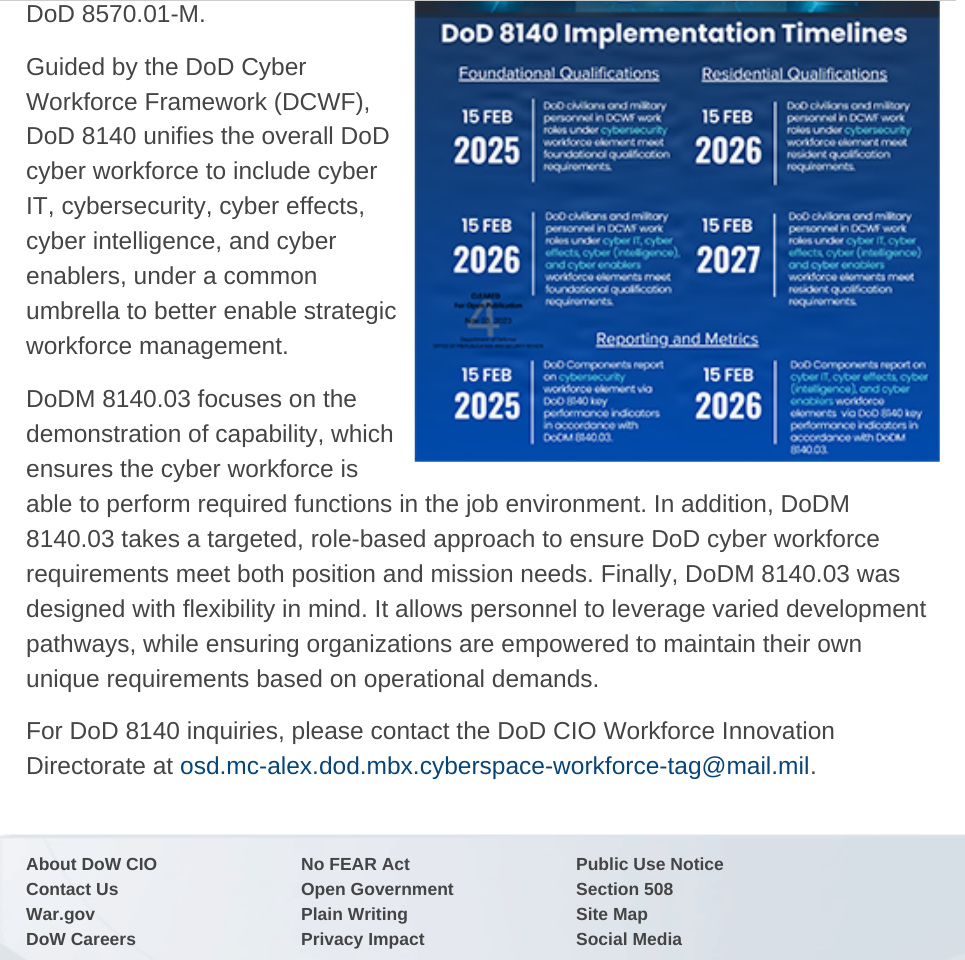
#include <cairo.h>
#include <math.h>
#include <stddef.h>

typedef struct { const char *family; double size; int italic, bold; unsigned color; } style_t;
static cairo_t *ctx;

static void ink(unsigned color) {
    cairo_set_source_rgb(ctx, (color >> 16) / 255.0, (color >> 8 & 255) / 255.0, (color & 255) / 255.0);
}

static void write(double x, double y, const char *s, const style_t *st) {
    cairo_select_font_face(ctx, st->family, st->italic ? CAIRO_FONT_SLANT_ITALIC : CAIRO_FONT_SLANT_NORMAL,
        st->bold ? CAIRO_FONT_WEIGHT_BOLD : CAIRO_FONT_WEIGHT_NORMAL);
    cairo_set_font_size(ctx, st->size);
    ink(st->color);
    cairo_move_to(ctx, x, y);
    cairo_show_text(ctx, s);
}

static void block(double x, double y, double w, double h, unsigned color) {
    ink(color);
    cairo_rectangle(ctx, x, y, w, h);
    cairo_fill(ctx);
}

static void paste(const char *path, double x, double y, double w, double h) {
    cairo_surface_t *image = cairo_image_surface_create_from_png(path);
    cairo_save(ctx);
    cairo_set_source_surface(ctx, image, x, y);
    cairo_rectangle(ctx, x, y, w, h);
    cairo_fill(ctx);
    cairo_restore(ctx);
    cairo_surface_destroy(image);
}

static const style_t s1 = {"Liberation Sans", 24.5, 0, 0, 0x444444};
static const style_t s2 = {"Liberation Sans", 24.5, 0, 0, 0x084476};
static const style_t s3 = {"Liberation Sans", 17.5, 0, 1, 0x444444};

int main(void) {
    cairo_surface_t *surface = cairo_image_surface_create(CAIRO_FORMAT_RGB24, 965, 960);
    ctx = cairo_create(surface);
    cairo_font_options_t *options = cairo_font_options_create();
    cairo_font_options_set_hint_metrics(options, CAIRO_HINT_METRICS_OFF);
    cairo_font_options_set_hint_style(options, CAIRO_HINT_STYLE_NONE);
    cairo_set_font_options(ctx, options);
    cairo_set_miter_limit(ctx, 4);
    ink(0xffffff);
    cairo_paint(ctx);
    block(0, 0, 956, 1, 0xcccccc);
    write(26, 22, "DoD 8570.01-M.", &s1);
    paste("pic1.png", 414, 1, 526, 461);
    write(26, 75, "Guided by the DoD Cyber", &s1);
    write(26, 110, "Workforce Framework (DCWF),", &s1);
    write(26, 144, "DoD 8140 unifies the overall DoD", &s1);
    write(26, 179, "cyber workforce to include cyber", &s1);
    write(26, 214, "IT, cybersecurity, cyber effects,", &s1);
    write(26, 249, "cyber intelligence, and cyber", &s1);
    write(26, 284, "enablers, under a common", &s1);
    write(26, 319, "umbrella to better enable strategic", &s1);
    write(26, 354, "workforce management.", &s1);
    write(26, 407, "DoDM 8140.03 focuses on the", &s1);
    write(26, 442, "demonstration of capability, which", &s1);
    write(26, 477, "ensures the cyber workforce is", &s1);
    write(26, 512, "able to perform required functions in the job environment. In addition, DoDM", &s1);
    write(26, 547, "8140.03 takes a targeted, role-based approach to ensure DoD cyber workforce", &s1);
    write(26, 582, "requirements meet both position and mission needs. Finally, DoDM 8140.03 was", &s1);
    write(26, 617, "designed with flexibility in mind. It allows personnel to leverage varied development", &s1);
    write(26, 652, "pathways, while ensuring organizations are empowered to maintain their own", &s1);
    write(26, 687, "unique requirements based on operational demands.", &s1);
    write(26, 739, "For DoD 8140 inquiries, please contact the DoD CIO Workforce Innovation", &s1);
    write(26, 774, "Directorate at", &s1);
    write(180, 774, "osd.mc-alex.dod.mbx.cyberspace-workforce-tag@mail.mil", &s2);
    write(810, 774, ".", &s1);
    paste("pic2.png", 0, 834, 965, 126);
    write(26, 870, "About DoW CIO", &s3);
    write(26, 895, "Contact Us", &s3);
    write(26, 920, "War.gov", &s3);
    write(26, 945, "DoW Careers", &s3);
    write(301, 870, "No FEAR Act", &s3);
    write(301, 895, "Open Government", &s3);
    write(301, 920, "Plain Writing", &s3);
    write(301, 945, "Privacy Impact", &s3);
    write(576, 870, "Public Use Notice", &s3);
    write(576, 895, "Section 508", &s3);
    write(576, 920, "Site Map", &s3);
    write(576, 945, "Social Media", &s3);
    cairo_surface_write_to_png(surface, "screenshot.png");
    cairo_font_options_destroy(options);
    cairo_destroy(ctx);
    cairo_surface_destroy(surface);
    return 0;
}
